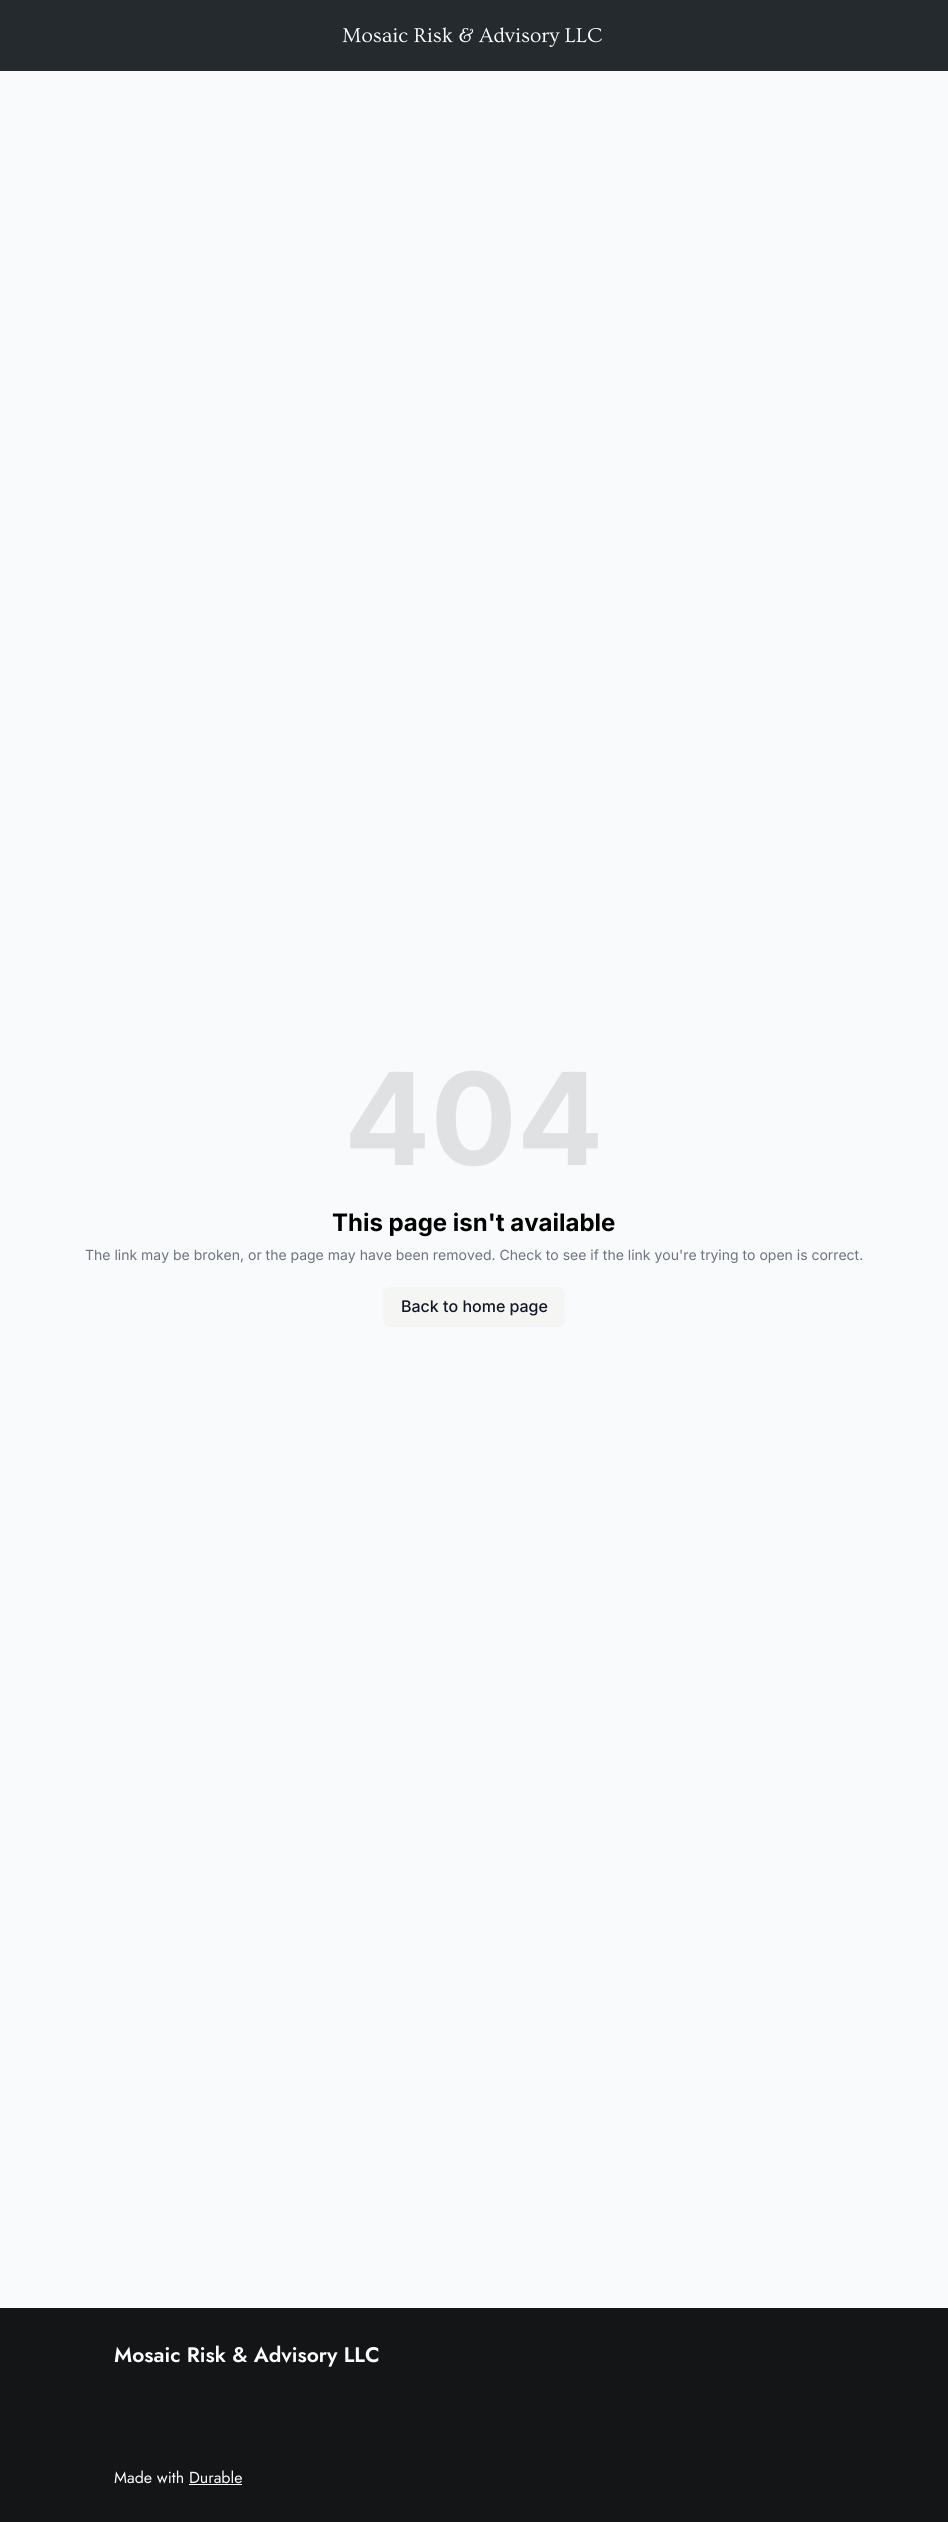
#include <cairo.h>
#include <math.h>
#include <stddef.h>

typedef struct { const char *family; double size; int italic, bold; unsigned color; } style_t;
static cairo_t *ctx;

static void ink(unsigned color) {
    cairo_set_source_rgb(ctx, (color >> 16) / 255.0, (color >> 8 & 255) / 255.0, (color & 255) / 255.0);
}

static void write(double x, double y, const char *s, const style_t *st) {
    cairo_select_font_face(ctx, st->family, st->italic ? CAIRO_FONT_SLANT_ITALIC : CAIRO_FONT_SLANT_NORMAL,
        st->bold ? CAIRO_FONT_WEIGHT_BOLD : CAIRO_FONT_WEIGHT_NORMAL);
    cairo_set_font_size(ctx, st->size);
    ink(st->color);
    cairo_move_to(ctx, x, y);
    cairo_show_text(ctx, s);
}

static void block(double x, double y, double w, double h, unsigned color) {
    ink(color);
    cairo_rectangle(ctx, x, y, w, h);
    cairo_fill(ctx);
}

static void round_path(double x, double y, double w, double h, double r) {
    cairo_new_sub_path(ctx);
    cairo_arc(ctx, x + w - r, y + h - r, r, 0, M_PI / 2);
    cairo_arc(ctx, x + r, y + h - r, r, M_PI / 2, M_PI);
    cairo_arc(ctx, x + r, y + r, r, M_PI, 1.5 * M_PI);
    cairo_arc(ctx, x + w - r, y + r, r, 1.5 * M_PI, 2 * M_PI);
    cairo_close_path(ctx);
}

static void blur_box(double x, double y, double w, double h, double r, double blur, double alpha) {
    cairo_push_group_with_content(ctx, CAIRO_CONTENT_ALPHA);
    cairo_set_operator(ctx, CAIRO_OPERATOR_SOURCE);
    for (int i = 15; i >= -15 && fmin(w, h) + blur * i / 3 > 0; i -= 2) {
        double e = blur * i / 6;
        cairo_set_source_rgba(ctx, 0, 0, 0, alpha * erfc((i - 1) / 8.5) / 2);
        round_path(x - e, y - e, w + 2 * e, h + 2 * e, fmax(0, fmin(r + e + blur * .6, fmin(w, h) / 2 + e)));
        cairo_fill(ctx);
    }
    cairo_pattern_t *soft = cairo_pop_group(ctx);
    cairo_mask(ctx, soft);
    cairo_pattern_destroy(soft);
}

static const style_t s1 = {"Ovo", 21, 0, 0, 0xffffff};
static const style_t s2 = {"Inter", 128, 0, 1, 0xe0e1e2};
static const style_t s3 = {"Inter", 24, 0, 1, 0x000000};
static const style_t s4 = {"Inter", 14, 0, 0, 0x6b7280};
static const style_t s5 = {"Inter Medium", 16, 0, 0, 0x111827};
static const style_t s6 = {"Jost SemiBold", 21, 0, 0, 0xffffff};
static const style_t s7 = {"Jost", 16, 0, 0, 0xffffff};

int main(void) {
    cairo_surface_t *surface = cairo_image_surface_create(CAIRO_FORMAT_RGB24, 948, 2522);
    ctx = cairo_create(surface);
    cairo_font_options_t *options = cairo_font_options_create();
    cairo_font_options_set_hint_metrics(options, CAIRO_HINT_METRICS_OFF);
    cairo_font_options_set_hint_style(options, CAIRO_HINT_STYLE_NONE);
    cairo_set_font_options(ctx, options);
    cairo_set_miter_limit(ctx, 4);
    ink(0xf9fafb);
    cairo_paint(ctx);
    block(0, 0, 948, 71, 0x242a2e);
    write(342, 42, "Mosaic Risk & Advisory LLC", &s1);
    write(344, 1165, "404", &s2);
    write(332, 1231, "This page isn't available", &s3);
    write(85, 1260, "The link may be broken, or the page may have been removed. Check to see if the link you're trying to open is correct.", &s4);
    ink(0x000000);
    blur_box(384, 1288, 180, 38, 6, 1, 0.05);
    ink(0xf5f5f4);
    round_path(384, 1287, 180, 38, 6);
    cairo_fill(ctx);
    write(401, 1312, "Back to home page", &s5);
    block(0, 2308, 948, 214, 0x131516);
    write(114, 2362, "Mosaic Risk & Advisory LLC", &s6);
    write(114, 2483, "Made with Durable", &s7);
    block(189, 2484, 53, 1, 0xffffff);
    cairo_surface_write_to_png(surface, "screenshot.png");
    cairo_font_options_destroy(options);
    cairo_destroy(ctx);
    cairo_surface_destroy(surface);
    return 0;
}
